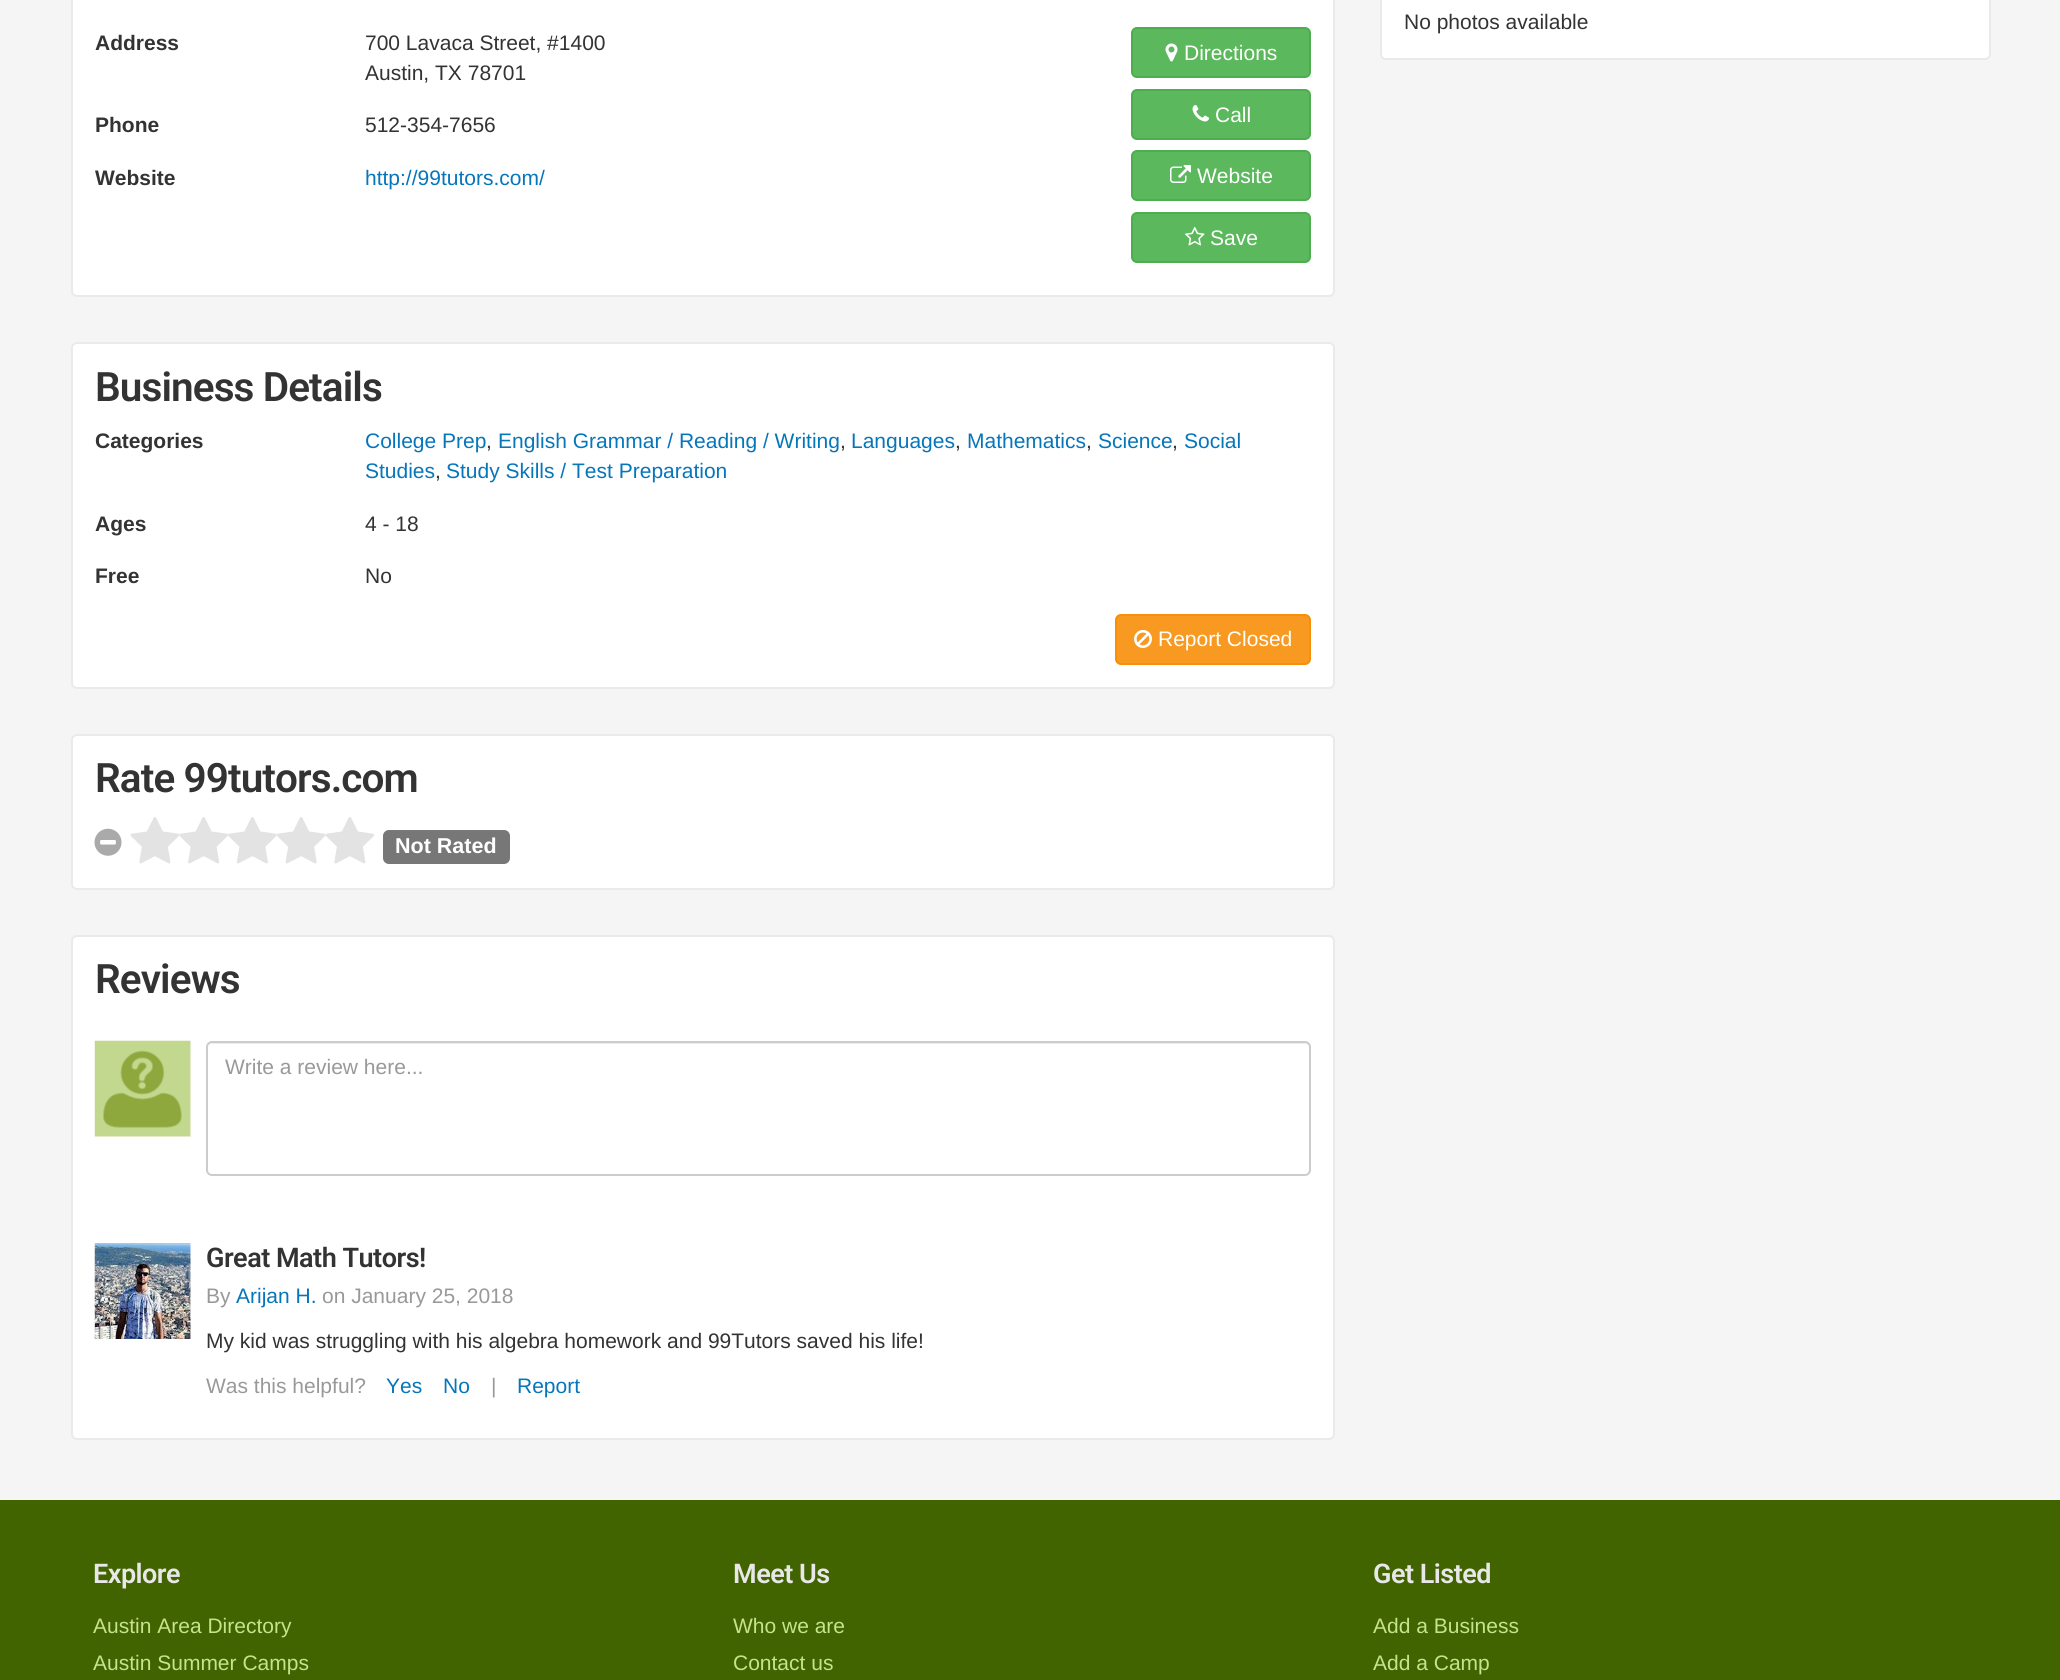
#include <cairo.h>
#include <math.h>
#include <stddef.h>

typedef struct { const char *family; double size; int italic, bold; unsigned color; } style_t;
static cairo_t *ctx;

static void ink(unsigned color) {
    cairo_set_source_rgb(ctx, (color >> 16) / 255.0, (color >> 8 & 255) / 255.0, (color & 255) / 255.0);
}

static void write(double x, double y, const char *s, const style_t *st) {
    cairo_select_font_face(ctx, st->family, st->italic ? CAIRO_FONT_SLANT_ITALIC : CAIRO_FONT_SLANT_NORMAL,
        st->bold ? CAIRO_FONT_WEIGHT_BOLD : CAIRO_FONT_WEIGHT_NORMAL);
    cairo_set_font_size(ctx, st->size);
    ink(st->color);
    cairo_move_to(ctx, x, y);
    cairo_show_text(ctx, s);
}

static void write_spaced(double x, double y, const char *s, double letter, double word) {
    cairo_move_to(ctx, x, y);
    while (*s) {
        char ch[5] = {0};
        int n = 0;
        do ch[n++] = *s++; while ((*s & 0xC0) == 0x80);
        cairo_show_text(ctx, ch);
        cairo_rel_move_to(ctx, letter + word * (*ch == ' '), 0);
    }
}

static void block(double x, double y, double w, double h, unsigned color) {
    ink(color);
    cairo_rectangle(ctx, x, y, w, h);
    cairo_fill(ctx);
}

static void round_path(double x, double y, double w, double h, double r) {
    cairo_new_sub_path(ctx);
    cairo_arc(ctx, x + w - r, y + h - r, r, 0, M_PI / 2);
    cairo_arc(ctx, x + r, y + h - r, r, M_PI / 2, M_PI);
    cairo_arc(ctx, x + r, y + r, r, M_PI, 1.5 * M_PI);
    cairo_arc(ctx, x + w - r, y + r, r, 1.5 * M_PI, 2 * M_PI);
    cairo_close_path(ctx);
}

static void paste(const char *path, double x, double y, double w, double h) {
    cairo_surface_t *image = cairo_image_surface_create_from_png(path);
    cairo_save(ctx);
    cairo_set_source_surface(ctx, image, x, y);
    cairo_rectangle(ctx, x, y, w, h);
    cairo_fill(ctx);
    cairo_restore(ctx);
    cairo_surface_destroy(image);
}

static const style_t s1 = {"Liberation Sans", 21, 0, 0, 0x333333};
static const style_t s2 = {"Liberation Sans", 21, 0, 1, 0x333333};
static const style_t s3 = {"Liberation Sans", 21, 0, 0, 0x0676bb};
static const style_t s4 = {"Liberation Sans", 21, 0, 0, 0xffffff};
static const style_t s5 = {"Liberation Sans", 21.5, 0, 1, 0xffffff};
static const style_t s6 = {"Liberation Sans", 21, 0, 0, 0x999999};
static const style_t s7 = {"Liberation Sans", 21, 0, 0, 0xc6e38d};

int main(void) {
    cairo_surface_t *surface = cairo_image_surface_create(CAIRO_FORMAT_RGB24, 2060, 1680);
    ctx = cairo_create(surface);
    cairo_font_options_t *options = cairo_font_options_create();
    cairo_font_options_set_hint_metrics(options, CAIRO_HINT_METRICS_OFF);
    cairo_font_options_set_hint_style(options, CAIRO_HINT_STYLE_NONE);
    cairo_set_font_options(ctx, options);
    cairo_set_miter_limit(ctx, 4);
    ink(0xf5f5f5);
    cairo_paint(ctx);
    ink(0xffffff);
    round_path(1381, -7, 609, 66, 5);
    cairo_fill_preserve(ctx);
    ink(0xeaeaea);
    cairo_stroke(ctx);
    write(1404, 29, "No photos available", &s1);
    ink(0xffffff);
    round_path(72, -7, 1262, 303, 5);
    cairo_fill_preserve(ctx);
    ink(0xeaeaea);
    cairo_stroke(ctx);
    write(95, 50, "Address", &s2);
    write(365, 50, "700 Lavaca Street, #1400", &s1);
    write(365, 80, "Austin, TX 78701", &s1);
    write(95, 132, "Phone", &s2);
    write(365, 132, "512-354-7656", &s1);
    write(95, 185, "Website", &s2);
    write(365, 185, "http://99tutors.com/", &s3);
    ink(0x5cb85c);
    round_path(1132, 28, 178, 49, 5);
    cairo_fill_preserve(ctx);
    ink(0x4cae4c);
    cairo_stroke(ctx);
    paste("pic1.png", 1165, 43, 13, 19);
    write(1184, 60, "Directions", &s4);
    ink(0x5cb85c);
    round_path(1132, 90, 178, 49, 5);
    cairo_fill_preserve(ctx);
    ink(0x4cae4c);
    cairo_stroke(ctx);
    paste("pic2.png", 1192, 105, 17, 17);
    write(1215, 122, "Call", &s4);
    ink(0x5cb85c);
    round_path(1132, 151, 178, 49, 5);
    cairo_fill_preserve(ctx);
    ink(0x4cae4c);
    cairo_stroke(ctx);
    paste("pic3.png", 1170, 165, 21, 18);
    write(1197, 183, "Website", &s4);
    ink(0x5cb85c);
    round_path(1132, 213, 178, 49, 5);
    cairo_fill_preserve(ctx);
    ink(0x4cae4c);
    cairo_stroke(ctx);
    paste("pic4.png", 1185, 226, 20, 20);
    write(1210, 245, "Save", &s4);
    round_path(72, 343, 1262, 345, 5);
    cairo_fill_preserve(ctx);
    ink(0xeaeaea);
    cairo_stroke(ctx);
    cairo_select_font_face(ctx, "Roboto SemiBold", CAIRO_FONT_SLANT_NORMAL, CAIRO_FONT_WEIGHT_NORMAL);
    cairo_set_font_size(ctx, 40.5);
    ink(0x333333);
    write_spaced(95, 401, "Business Details", -0.9, 0);
    write(95, 448, "Categories", &s2);
    write(365, 448, "College Prep", &s3);
    write(486, 448, ",", &s1);
    write(498, 448, "English Grammar / Reading / Writing", &s3);
    write(840, 448, ",", &s1);
    write(851, 448, "Languages", &s3);
    write(955, 448, ",", &s1);
    write(967, 448, "Mathematics", &s3);
    write(1086, 448, ",", &s1);
    write(1098, 448, "Science", &s3);
    write(1172, 448, ",", &s1);
    write(1184, 448, "Social", &s3);
    write(365, 478, "Studies", &s3);
    write(435, 478, ",", &s1);
    write(446, 478, "Study Skills / Test Preparation", &s3);
    write(95, 531, "Ages", &s2);
    write(365, 531, "4 - 18", &s1);
    write(95, 583, "Free", &s2);
    write(365, 583, "No", &s1);
    ink(0xf89a21);
    round_path(1116, 615, 194, 49, 5);
    cairo_fill_preserve(ctx);
    ink(0xf78f08);
    cairo_stroke(ctx);
    paste("pic5.png", 1134, 630, 18, 18);
    write(1158, 646, "Report Closed", &s4);
    round_path(72, 735, 1262, 154, 5);
    cairo_fill_preserve(ctx);
    ink(0xeaeaea);
    cairo_stroke(ctx);
    cairo_select_font_face(ctx, "Roboto SemiBold", CAIRO_FONT_SLANT_NORMAL, CAIRO_FONT_WEIGHT_NORMAL);
    cairo_set_font_size(ctx, 40.5);
    ink(0x333333);
    write_spaced(95, 792, "Rate 99tutors.com", -0.9, 0);
    paste("pic6.png", 94, 828, 28, 28);
    paste("pic7.png", 130, 817, 244, 47);
    ink(0x777777);
    round_path(383, 830, 127, 34, 6);
    cairo_fill(ctx);
    write(395, 853, "Not Rated", &s5);
    round_path(72, 936, 1262, 503, 5);
    cairo_fill_preserve(ctx);
    ink(0xeaeaea);
    cairo_stroke(ctx);
    cairo_select_font_face(ctx, "Roboto SemiBold", CAIRO_FONT_SLANT_NORMAL, CAIRO_FONT_WEIGHT_NORMAL);
    cairo_set_font_size(ctx, 40.5);
    ink(0x333333);
    write_spaced(95, 993, "Reviews", -0.9, 0);
    paste("pic8.png", 94, 1040, 97, 97);
    ink(0xececec);
    cairo_new_path(ctx);
    cairo_move_to(ctx, 212, 1044);
    cairo_line_to(ctx, 1305, 1044);
    cairo_curve_to(ctx, 1307, 1044, 1310, 1046, 1310, 1048);
    cairo_curve_to(ctx, 1310, 1045, 1308, 1043, 1305, 1043);
    cairo_line_to(ctx, 212, 1043);
    cairo_curve_to(ctx, 209, 1043, 207, 1045, 207, 1048);
    cairo_curve_to(ctx, 207, 1046, 209, 1044, 212, 1044);
    cairo_close_path(ctx);
    cairo_fill(ctx);
    round_path(207, 1042, 1103, 133, 5);
    ink(0xcccccc);
    cairo_stroke(ctx);
    write(225, 1074, "Write a review here...", &s6);
    paste("pic9.png", 94, 1243, 97, 96);
    cairo_select_font_face(ctx, "Roboto SemiBold", CAIRO_FONT_SLANT_NORMAL, CAIRO_FONT_WEIGHT_NORMAL);
    cairo_set_font_size(ctx, 27);
    ink(0x333333);
    write_spaced(206, 1267, "Great Math Tutors!", -0.5, 0);
    write(206, 1303, "By", &s6);
    write(236, 1303, "Arijan H.", &s3);
    write(322, 1303, "on January 25, 2018", &s6);
    write(206, 1348, "My kid was struggling with his algebra homework and 99Tutors saved his life!", &s1);
    write(206, 1393, "Was this helpful?", &s6);
    write(386, 1393, "Yes", &s3);
    write(443, 1393, "No", &s3);
    write(491, 1393, "|", &s6);
    write(517, 1393, "Report", &s3);
    block(0, 1500, 2060, 180, 0x416300);
    cairo_select_font_face(ctx, "Roboto SemiBold", CAIRO_FONT_SLANT_NORMAL, CAIRO_FONT_WEIGHT_NORMAL);
    cairo_set_font_size(ctx, 27);
    ink(0xe8e8e8);
    write_spaced(93, 1583, "Explore", -0.5, 0);
    write(93, 1633, "Austin Area Directory", &s7);
    write(93, 1670, "Austin Summer Camps", &s7);
    cairo_select_font_face(ctx, "Roboto SemiBold", CAIRO_FONT_SLANT_NORMAL, CAIRO_FONT_WEIGHT_NORMAL);
    cairo_set_font_size(ctx, 27);
    ink(0xe8e8e8);
    write_spaced(733, 1583, "Meet Us", -0.5, 0);
    write(733, 1633, "Who we are", &s7);
    write(733, 1670, "Contact us", &s7);
    cairo_select_font_face(ctx, "Roboto SemiBold", CAIRO_FONT_SLANT_NORMAL, CAIRO_FONT_WEIGHT_NORMAL);
    cairo_set_font_size(ctx, 27);
    ink(0xe8e8e8);
    write_spaced(1373, 1583, "Get Listed", -0.5, 0);
    write(1373, 1633, "Add a Business", &s7);
    write(1373, 1670, "Add a Camp", &s7);
    cairo_surface_write_to_png(surface, "screenshot.png");
    cairo_font_options_destroy(options);
    cairo_destroy(ctx);
    cairo_surface_destroy(surface);
    return 0;
}
